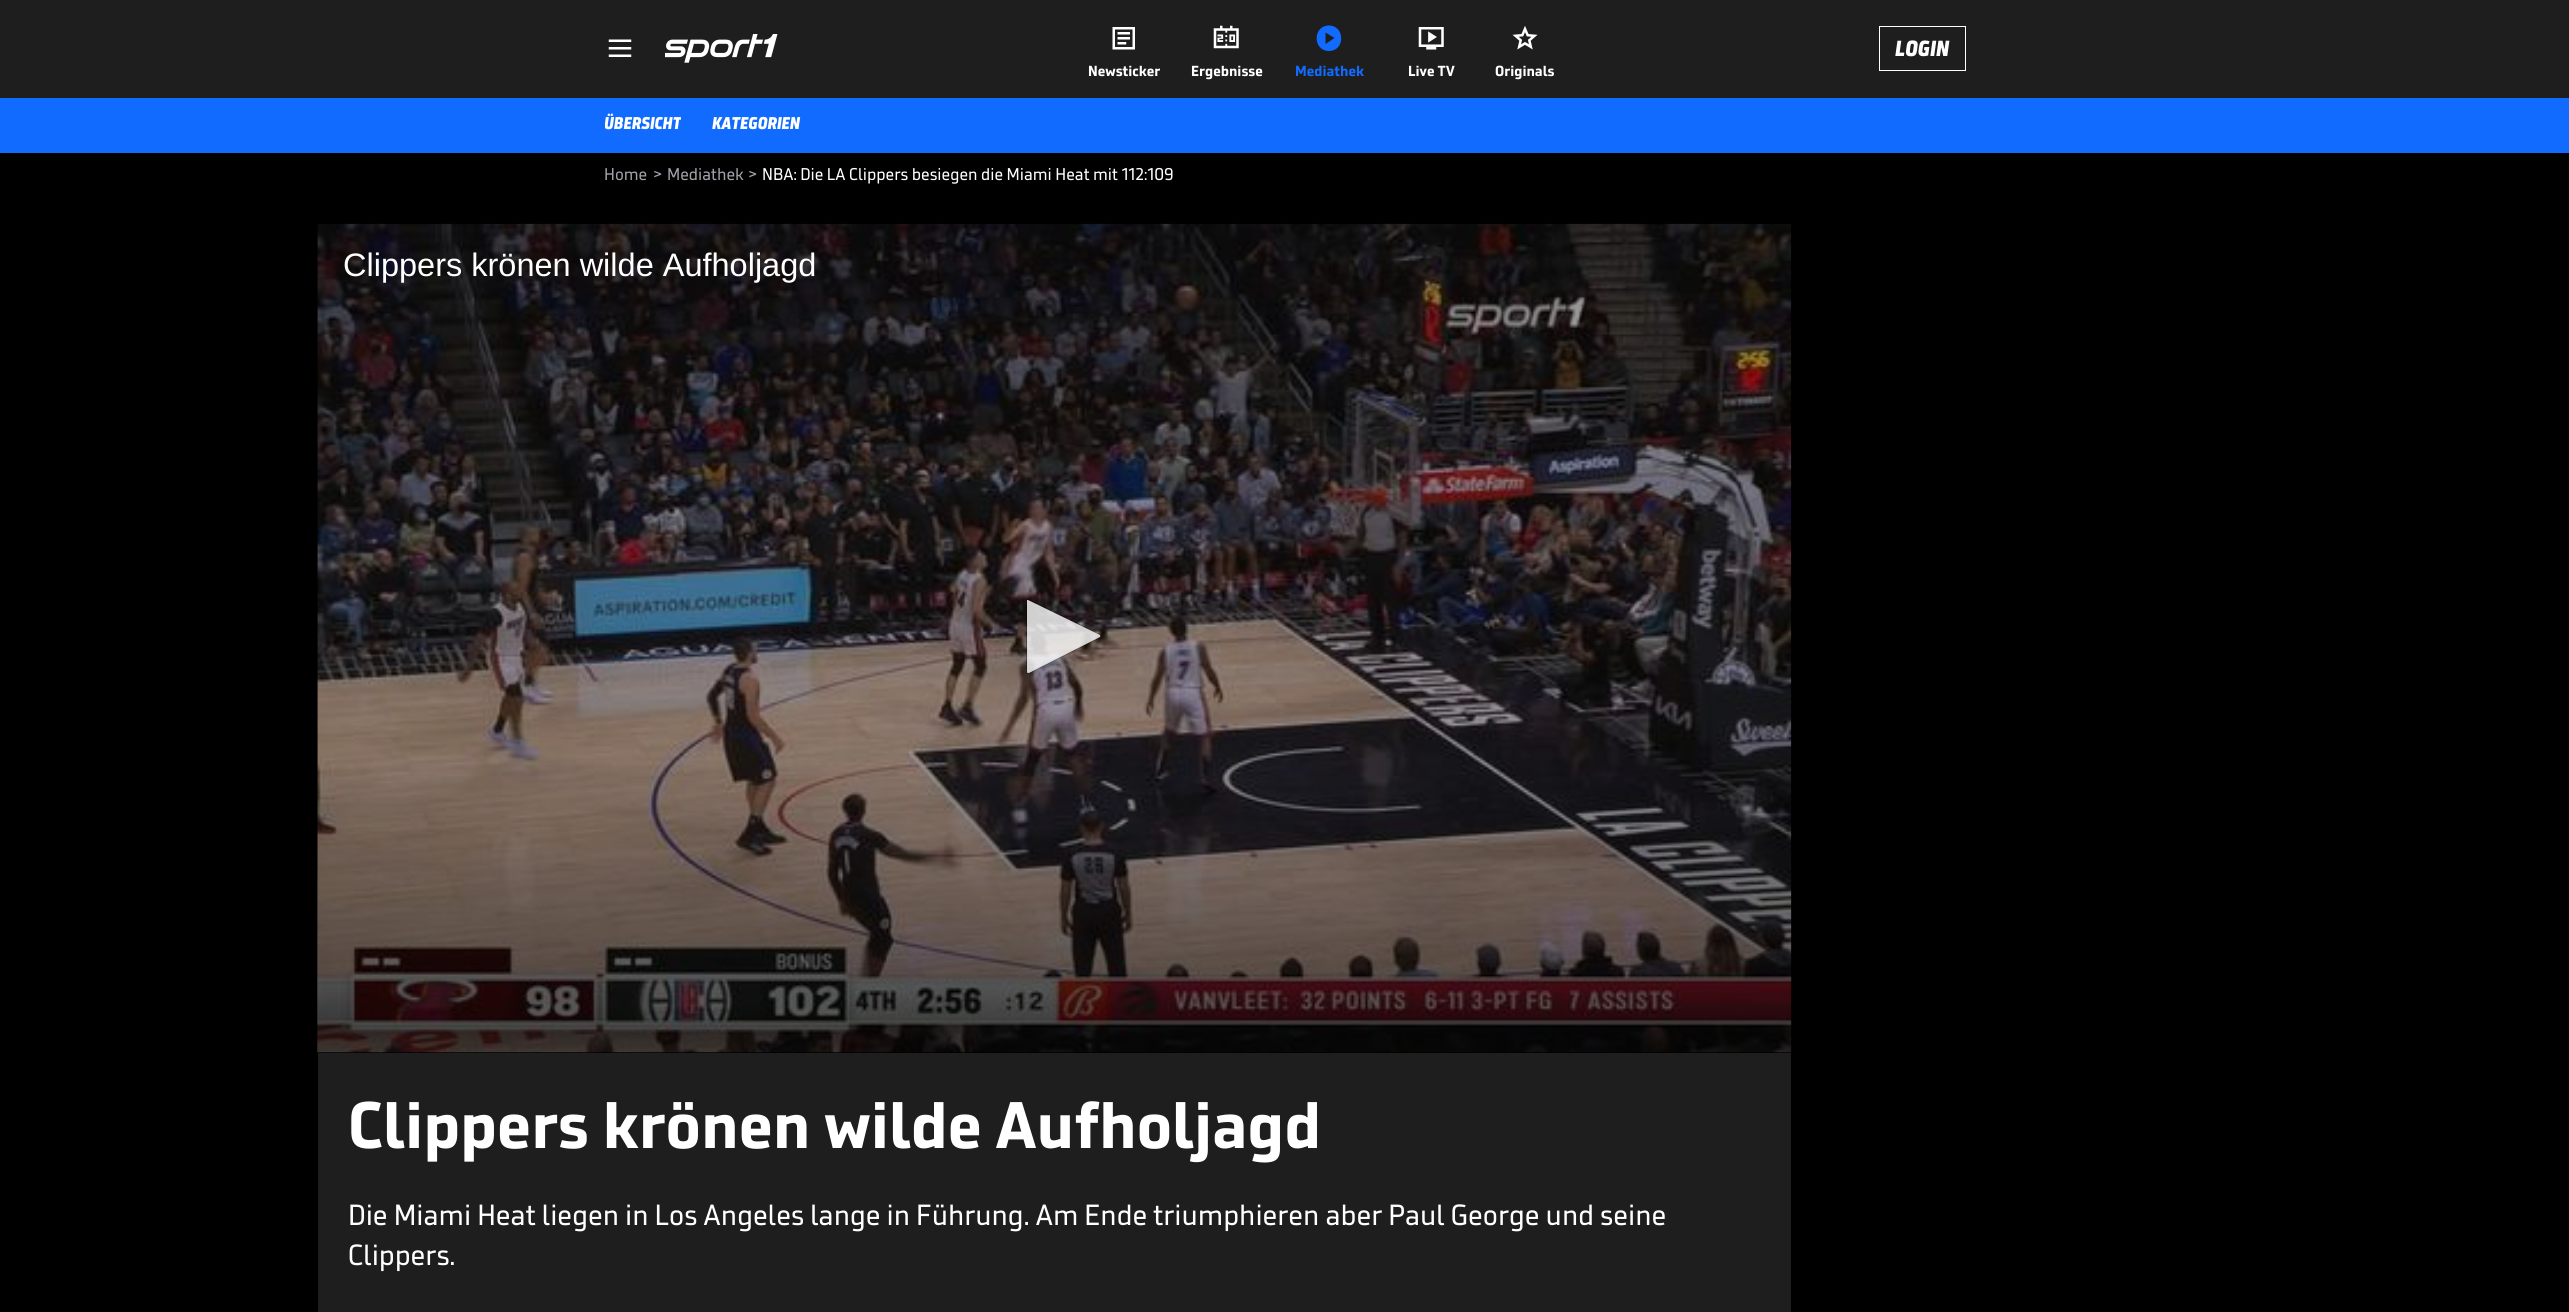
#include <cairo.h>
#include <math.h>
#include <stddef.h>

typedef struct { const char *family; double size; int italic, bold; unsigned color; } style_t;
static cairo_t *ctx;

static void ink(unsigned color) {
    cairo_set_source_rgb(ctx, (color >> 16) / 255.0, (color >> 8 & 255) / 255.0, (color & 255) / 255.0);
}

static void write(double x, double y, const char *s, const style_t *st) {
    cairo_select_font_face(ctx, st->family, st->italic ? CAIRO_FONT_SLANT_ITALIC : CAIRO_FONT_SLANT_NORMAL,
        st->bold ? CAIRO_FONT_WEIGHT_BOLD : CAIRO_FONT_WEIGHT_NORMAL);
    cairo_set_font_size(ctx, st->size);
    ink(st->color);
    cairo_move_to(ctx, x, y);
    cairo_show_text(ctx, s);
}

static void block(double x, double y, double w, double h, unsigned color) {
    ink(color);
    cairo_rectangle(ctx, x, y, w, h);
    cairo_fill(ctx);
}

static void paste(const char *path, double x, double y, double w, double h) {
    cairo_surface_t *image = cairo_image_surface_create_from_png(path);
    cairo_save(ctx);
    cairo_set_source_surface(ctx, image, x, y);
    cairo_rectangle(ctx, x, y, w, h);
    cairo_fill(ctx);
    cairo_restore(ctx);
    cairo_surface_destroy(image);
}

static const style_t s1 = {"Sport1 Black", 22.5, 1, 0, 0xffffff};
static const style_t s2 = {"Sport1", 15, 0, 1, 0xffffff};
static const style_t s3 = {"Sport1", 15, 0, 1, 0x106bfe};
static const style_t s4 = {"Sport1 Black", 17.5, 1, 0, 0xffffff};
static const style_t s5 = {"Sport1", 17.5, 0, 0, 0xa1a1a9};
static const style_t s6 = {"Sport1", 17.5, 0, 0, 0xffffff};
static const style_t s7 = {"Liberation Sans", 32.5, 0, 0, 0xffffff};
static const style_t s8 = {"Sport1", 67.5, 0, 1, 0xffffff};
static const style_t s9 = {"Sport1", 30, 0, 0, 0xffffff};

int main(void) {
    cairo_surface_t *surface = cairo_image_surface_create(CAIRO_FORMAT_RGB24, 2569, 1312);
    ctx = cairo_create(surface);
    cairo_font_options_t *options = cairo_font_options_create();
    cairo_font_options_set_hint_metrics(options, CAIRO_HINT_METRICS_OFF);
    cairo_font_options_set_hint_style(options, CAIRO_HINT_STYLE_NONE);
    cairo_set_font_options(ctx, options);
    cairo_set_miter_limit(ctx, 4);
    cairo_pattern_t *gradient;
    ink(0x000000);
    cairo_paint(ctx);
    block(0, 0, 2569, 98, 0x1e1e1e);
    paste("pic1.png", 608, 39, 24, 18);
    paste("pic2.png", 665, 34, 113, 29);
    cairo_rectangle(ctx, 1879.5, 26.5, 86, 44);
    ink(0xffffff);
    cairo_set_line_width(ctx, 1);
    cairo_stroke(ctx);
    write(1895, 56, "LOGIN", &s1);
    paste("pic3.png", 1112, 27, 23, 23);
    write(1088, 76, "Newsticker", &s2);
    paste("pic4.png", 1213, 25, 26, 24);
    write(1191, 76, "Ergebnisse", &s2);
    ink(0x106bfe);
    cairo_new_path(ctx);
    cairo_move_to(ctx, 1325.5, 44);
    cairo_line_to(ctx, 1334.5, 38);
    cairo_line_to(ctx, 1325.5, 32.5);
    cairo_close_path(ctx);
    cairo_move_to(ctx, 1329, 51);
    cairo_curve_to(ctx, 1312.5, 51, 1312.5, 25.5, 1329, 25.5);
    cairo_curve_to(ctx, 1345, 25.5, 1345.5, 51, 1329, 51);
    cairo_close_path(ctx);
    cairo_fill(ctx);
    write(1295, 76, "Mediathek", &s3);
    paste("pic5.png", 1418, 27, 26, 23);
    write(1408, 76, "Live TV", &s2);
    paste("pic6.png", 1512, 26, 26, 24);
    write(1495, 76, "Originals", &s2);
    block(0, 98, 2569, 55, 0x106bfe);
    cairo_save(ctx);
    cairo_rectangle(ctx, 605, 113, 76, 22);
    cairo_clip(ctx);
    write(604, 129, "ÜBERSICHT", &s4);
    cairo_restore(ctx);
    write(712, 129, "KATEGORIEN", &s4);
    write(604, 180, "Home", &s5);
    write(653, 180, ">", &s5);
    write(667, 180, "Mediathek", &s5);
    write(748, 180, ">", &s5);
    write(762, 180, "NBA: Die LA Clippers besiegen die Miami Heat mit 112:109", &s6);
    paste("pic7.png", 317, 223, 1475, 830);
    write(343, 276, "Clippers krönen wilde Aufholjagd", &s7);
    cairo_new_path(ctx);
    cairo_move_to(ctx, 1029, 672.5);
    cairo_curve_to(ctx, 1028.5, 673, 1027.5, 673, 1027, 672.5);
    cairo_line_to(ctx, 1027, 600.5);
    cairo_line_to(ctx, 1028.5, 599.5);
    cairo_line_to(ctx, 1099.5, 635.5);
    cairo_curve_to(ctx, 1100.5, 635.5, 1100.5, 636.5, 1100, 637);
    cairo_close_path(ctx);
    cairo_set_source_rgba(ctx, 0, 0, 0, 0.3);
    cairo_set_line_width(ctx, 2);
    cairo_stroke(ctx);
    cairo_set_source_rgba(ctx, 1, 1, 1, 0.8);
    cairo_new_path(ctx);
    cairo_move_to(ctx, 1029, 673);
    cairo_curve_to(ctx, 1028, 673, 1027, 673, 1027, 672);
    cairo_line_to(ctx, 1027, 600);
    cairo_line_to(ctx, 1028, 600);
    cairo_line_to(ctx, 1100, 635);
    cairo_curve_to(ctx, 1100, 636, 1101, 636, 1100, 637);
    cairo_close_path(ctx);
    cairo_fill(ctx);
    gradient = cairo_pattern_create_linear(1054, 752, 1054, 1053);
    cairo_pattern_add_color_stop_rgba(gradient, 0, 0, 0, 0, 0);
    cairo_pattern_add_color_stop_rgba(gradient, 0.77, 0, 0, 0, 0.4);
    cairo_pattern_add_color_stop_rgba(gradient, 1, 0, 0, 0, 0.4);
    cairo_set_source(ctx, gradient);
    cairo_pattern_destroy(gradient);
    cairo_rectangle(ctx, 318, 765, 1473, 288);
    cairo_fill(ctx);
    block(318, 1053, 1473, 259, 0x1e1e1e);
    write(348, 1148, "Clippers krönen wilde Aufholjagd", &s8);
    write(348, 1225, "Die Miami Heat liegen in Los Angeles lange in Führung. Am Ende triumphieren aber Paul George und seine", &s9);
    write(348, 1265, "Clippers.", &s9);
    cairo_surface_write_to_png(surface, "screenshot.png");
    cairo_font_options_destroy(options);
    cairo_destroy(ctx);
    cairo_surface_destroy(surface);
    return 0;
}
